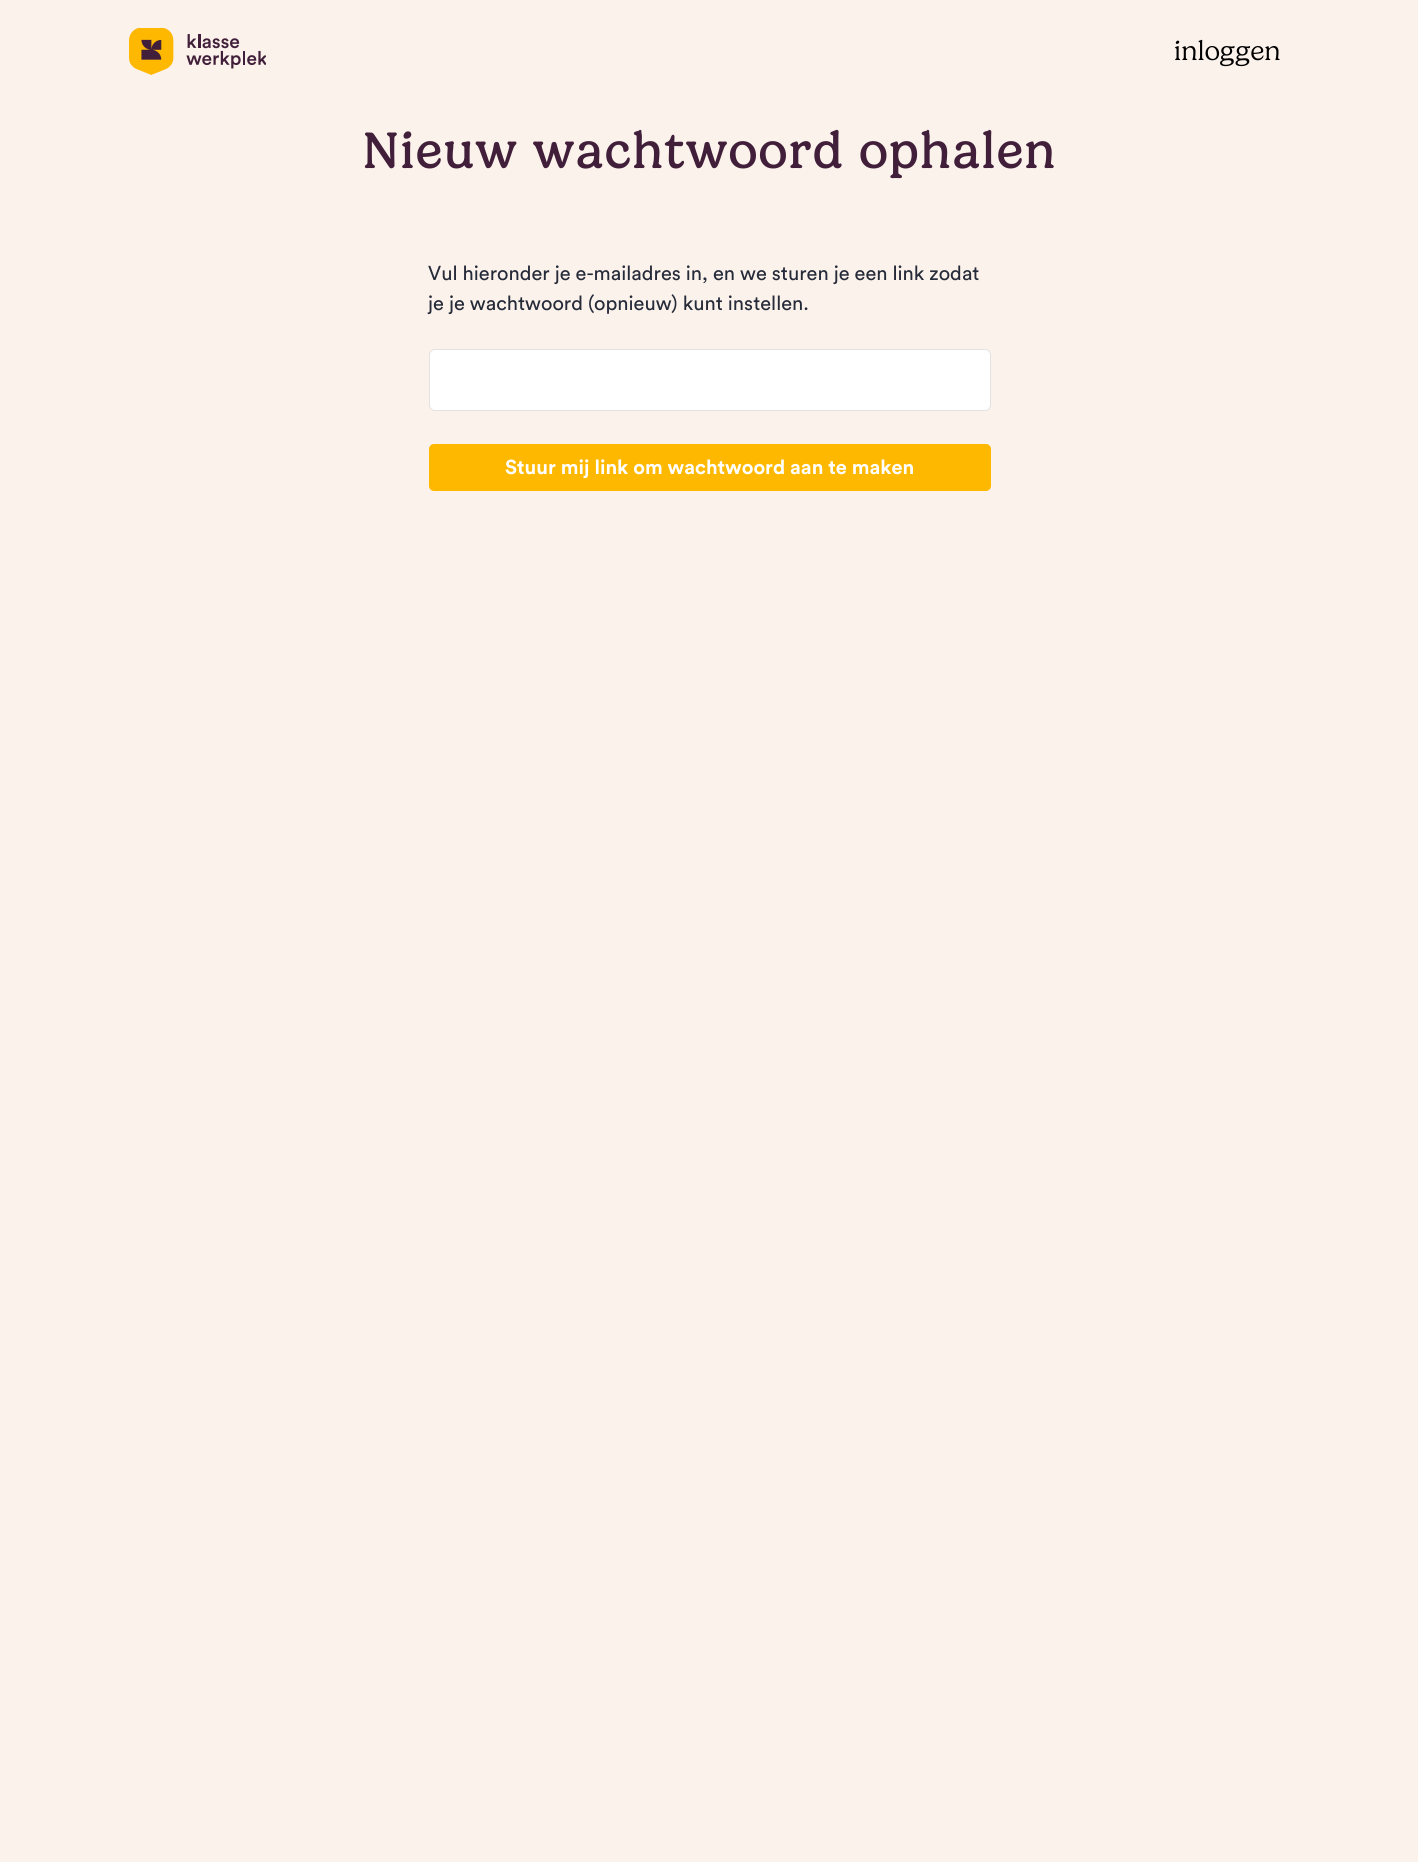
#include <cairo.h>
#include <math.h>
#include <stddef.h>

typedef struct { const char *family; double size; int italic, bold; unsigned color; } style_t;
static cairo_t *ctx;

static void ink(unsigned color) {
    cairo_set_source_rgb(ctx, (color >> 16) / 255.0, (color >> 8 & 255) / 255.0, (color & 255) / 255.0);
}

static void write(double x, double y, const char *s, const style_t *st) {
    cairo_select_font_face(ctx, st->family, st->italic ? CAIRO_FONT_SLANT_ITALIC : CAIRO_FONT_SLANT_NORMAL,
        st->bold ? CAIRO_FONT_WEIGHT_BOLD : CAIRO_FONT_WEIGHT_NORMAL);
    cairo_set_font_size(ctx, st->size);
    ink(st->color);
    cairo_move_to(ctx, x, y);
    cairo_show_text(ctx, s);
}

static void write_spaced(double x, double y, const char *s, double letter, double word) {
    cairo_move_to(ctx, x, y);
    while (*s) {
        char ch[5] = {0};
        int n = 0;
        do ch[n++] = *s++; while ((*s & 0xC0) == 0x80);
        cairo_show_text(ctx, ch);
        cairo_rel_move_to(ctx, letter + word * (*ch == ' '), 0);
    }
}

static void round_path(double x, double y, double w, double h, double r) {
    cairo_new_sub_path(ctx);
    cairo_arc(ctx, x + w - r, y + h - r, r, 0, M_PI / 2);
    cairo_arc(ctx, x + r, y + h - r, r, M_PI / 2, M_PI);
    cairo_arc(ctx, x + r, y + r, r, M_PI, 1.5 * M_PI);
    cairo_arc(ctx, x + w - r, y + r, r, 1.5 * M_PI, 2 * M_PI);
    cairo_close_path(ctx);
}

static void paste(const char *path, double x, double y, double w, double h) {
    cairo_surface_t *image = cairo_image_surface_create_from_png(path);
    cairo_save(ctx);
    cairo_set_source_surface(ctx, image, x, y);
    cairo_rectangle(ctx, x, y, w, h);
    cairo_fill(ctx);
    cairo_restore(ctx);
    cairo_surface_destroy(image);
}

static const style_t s1 = {"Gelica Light", 27.5, 0, 0, 0x000000};
static const style_t s2 = {"Circular", 20, 0, 0, 0x262b39};
static const style_t s3 = {"Circular", 20, 0, 1, 0xffffff};

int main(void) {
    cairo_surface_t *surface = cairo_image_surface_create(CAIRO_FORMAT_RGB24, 1418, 1862);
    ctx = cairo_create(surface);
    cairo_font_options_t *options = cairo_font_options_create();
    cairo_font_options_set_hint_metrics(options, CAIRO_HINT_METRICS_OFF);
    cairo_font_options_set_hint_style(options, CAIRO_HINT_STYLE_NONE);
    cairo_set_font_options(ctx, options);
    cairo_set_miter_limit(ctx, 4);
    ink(0xfbf2eb);
    cairo_paint(ctx);
    paste("pic1.png", 129, 28, 137, 47);
    write(1174, 60, "inloggen", &s1);
    cairo_select_font_face(ctx, "Gelica", CAIRO_FONT_SLANT_NORMAL, CAIRO_FONT_WEIGHT_BOLD);
    cairo_set_font_size(ctx, 50);
    ink(0x411f3a);
    write_spaced(362, 168, "Nieuw wachtwoord ophalen", 2.5, 0);
    write(428, 280, "Vul hieronder je e-mailadres in, en we sturen je een link zodat", &s2);
    write(428, 310, "je je wachtwoord (opnieuw) kunt instellen.", &s2);
    ink(0xffffff);
    round_path(429.5, 349.5, 561, 61, 5.5);
    cairo_fill_preserve(ctx);
    ink(0xe2e2e2);
    cairo_set_line_width(ctx, 1);
    cairo_stroke(ctx);
    ink(0xffb800);
    round_path(429, 444, 562, 47, 5);
    cairo_fill(ctx);
    write(505, 474, "Stuur mij link om wachtwoord aan te maken", &s3);
    cairo_surface_write_to_png(surface, "screenshot.png");
    cairo_font_options_destroy(options);
    cairo_destroy(ctx);
    cairo_surface_destroy(surface);
    return 0;
}
